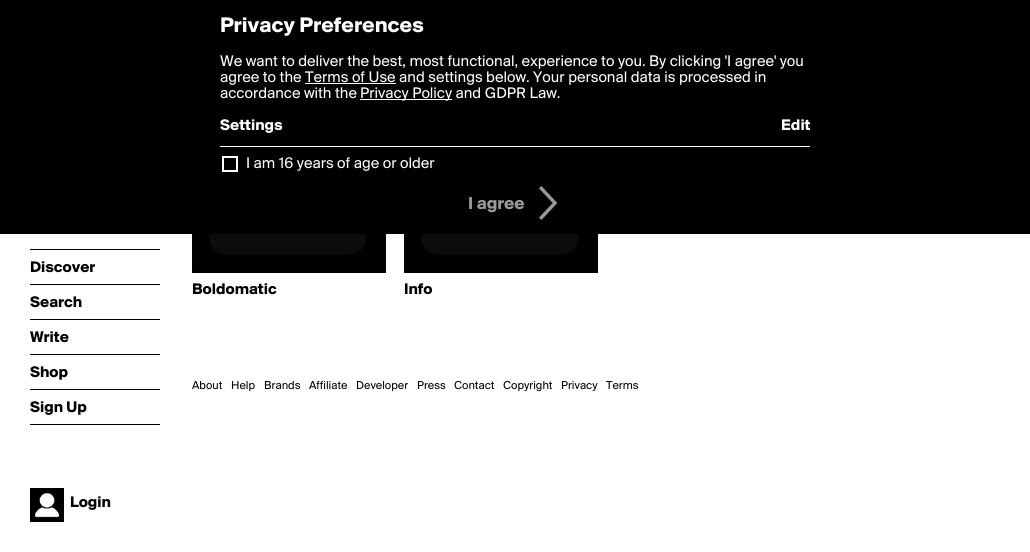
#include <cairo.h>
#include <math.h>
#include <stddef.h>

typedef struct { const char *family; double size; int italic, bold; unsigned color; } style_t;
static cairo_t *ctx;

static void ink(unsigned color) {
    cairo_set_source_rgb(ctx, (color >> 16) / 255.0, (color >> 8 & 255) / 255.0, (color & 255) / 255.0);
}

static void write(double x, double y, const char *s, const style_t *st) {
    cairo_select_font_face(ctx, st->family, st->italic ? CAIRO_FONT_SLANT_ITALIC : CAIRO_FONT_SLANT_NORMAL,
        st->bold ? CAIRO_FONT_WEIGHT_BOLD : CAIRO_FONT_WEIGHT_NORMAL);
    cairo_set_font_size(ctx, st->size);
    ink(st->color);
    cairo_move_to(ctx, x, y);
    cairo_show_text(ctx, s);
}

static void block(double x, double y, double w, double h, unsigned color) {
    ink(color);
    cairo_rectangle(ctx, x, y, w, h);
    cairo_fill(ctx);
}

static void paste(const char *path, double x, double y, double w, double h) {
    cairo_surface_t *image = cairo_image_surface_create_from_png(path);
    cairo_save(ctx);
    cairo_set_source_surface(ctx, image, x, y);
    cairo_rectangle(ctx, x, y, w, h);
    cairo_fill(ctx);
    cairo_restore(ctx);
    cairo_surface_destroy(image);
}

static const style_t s1 = {"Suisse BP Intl", 22, 0, 1, 0xffffff};
static const style_t s2 = {"Suisse BP Intl", 16, 0, 0, 0xffffff};
static const style_t s3 = {"Suisse BP Intl", 16, 0, 1, 0xffffff};
static const style_t s4 = {"Suisse BP Intl", 18, 0, 1, 0x999999};
static const style_t s5 = {"Suisse BP Intl", 16, 0, 1, 0x000000};
static const style_t s6 = {"Suisse BP Intl", 12, 0, 0, 0x000000};

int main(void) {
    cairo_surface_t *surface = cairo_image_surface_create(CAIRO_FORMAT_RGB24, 1030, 552);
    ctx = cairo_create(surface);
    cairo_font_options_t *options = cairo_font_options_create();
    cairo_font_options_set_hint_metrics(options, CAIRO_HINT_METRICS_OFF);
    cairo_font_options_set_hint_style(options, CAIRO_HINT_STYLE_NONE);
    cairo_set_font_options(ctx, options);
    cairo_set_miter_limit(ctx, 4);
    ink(0xffffff);
    cairo_paint(ctx);
    block(0, 0, 1030, 234, 0x000000);
    write(220, 32, "Privacy Preferences", &s1);
    write(220, 66, "We want to deliver the best, most functional, experience to you. By clicking 'I agree' you", &s2);
    write(220, 82, "agree to the Terms of Use and settings below. Your personal data is processed in", &s2);
    block(305, 83, 91, 1, 0xffffff);
    write(220, 98, "accordance with the", &s2);
    block(360, 99, 92, 1, 0xffffff);
    write(360, 98, "Privacy Policy and GDPR Law.", &s2);
    write(220, 130, "Settings", &s3);
    write(781, 130, "Edit", &s3);
    block(220, 146, 590, 1, 0xffffff);
    cairo_rectangle(ctx, 223, 157, 14, 14);
    cairo_stroke(ctx);
    write(246, 168, "I am 16 years of age or older", &s2);
    write(468, 209, "I agree", &s4);
    paste("pic1.png", 539, 186, 19, 34);
    block(30, 249, 130, 1, 0x000000);
    block(30, 284, 130, 1, 0x000000);
    write(30, 272, "Discover", &s5);
    block(30, 319, 130, 1, 0x000000);
    write(30, 307, "Search", &s5);
    block(30, 354, 130, 1, 0x000000);
    write(30, 342, "Write", &s5);
    block(30, 389, 130, 1, 0x000000);
    write(30, 377, "Shop", &s5);
    block(30, 424, 130, 1, 0x000000);
    write(30, 412, "Sign Up", &s5);
    paste("pic2.png", 30, 488, 34, 34);
    write(70, 507, "Login", &s5);
    block(192, 234, 194, 39, 0x000000);
    paste("pic3.png", 193, 234, 192, 38);
    write(192, 294, "Boldomatic", &s5);
    block(404, 234, 194, 39, 0x000000);
    paste("pic4.png", 405, 234, 192, 38);
    write(404, 294, "Info", &s5);
    write(192, 389, "About", &s6);
    write(231, 389, "Help", &s6);
    write(264, 389, "Brands", &s6);
    write(309, 389, "Affiliate", &s6);
    write(356, 389, "Developer", &s6);
    write(417, 389, "Press", &s6);
    write(454, 389, "Contact", &s6);
    write(503, 389, "Copyright", &s6);
    write(561, 389, "Privacy", &s6);
    write(606, 389, "Terms", &s6);
    cairo_surface_write_to_png(surface, "screenshot.png");
    cairo_font_options_destroy(options);
    cairo_destroy(ctx);
    cairo_surface_destroy(surface);
    return 0;
}
